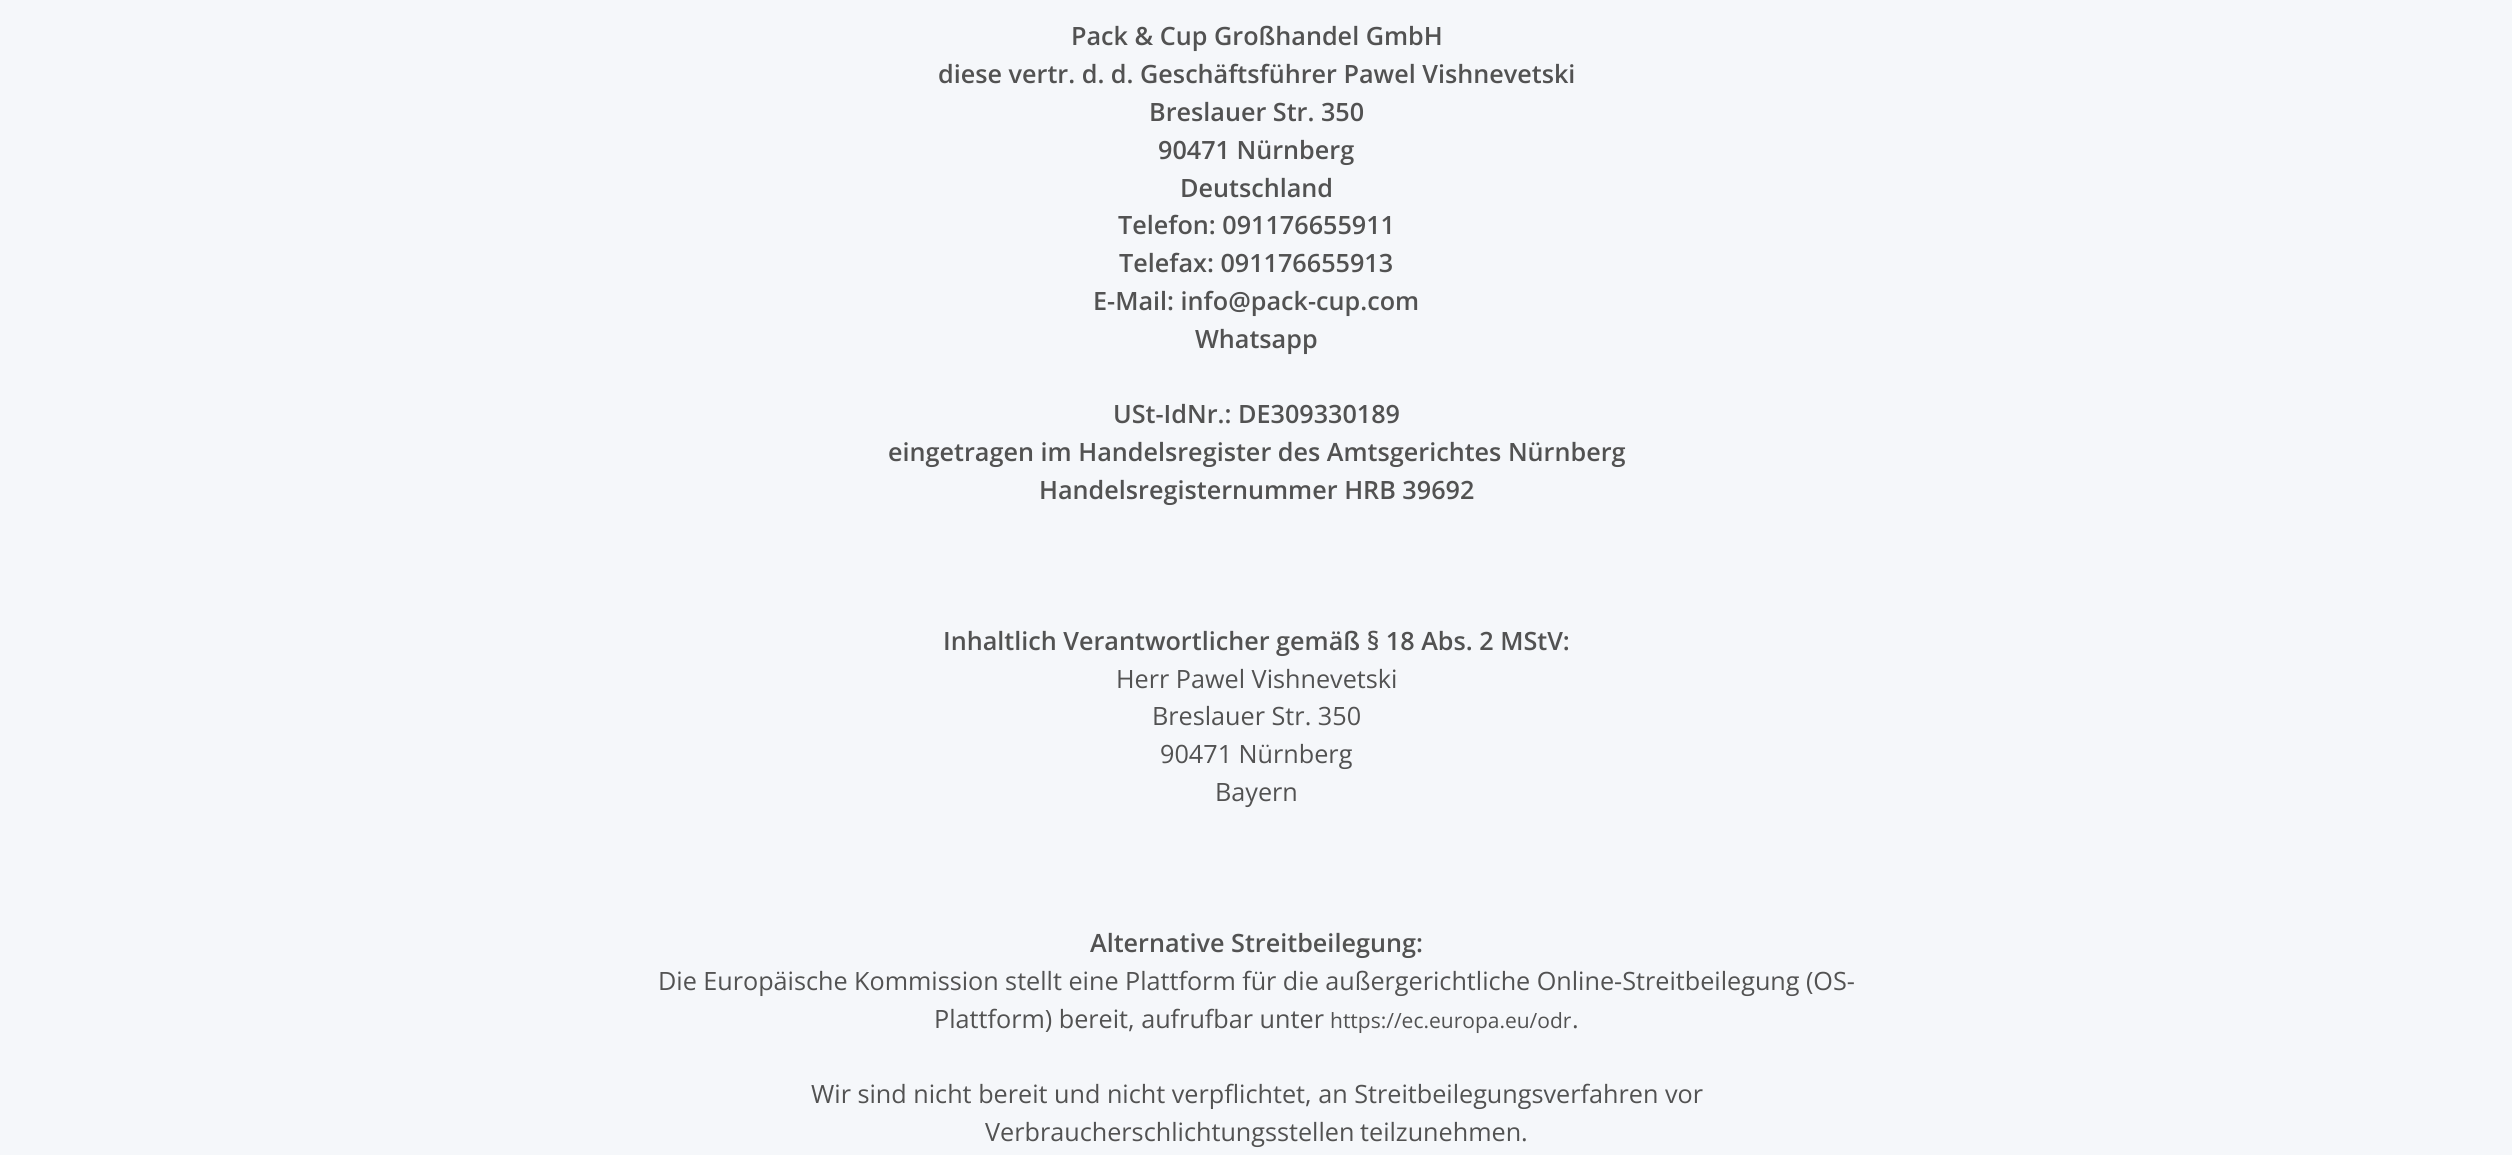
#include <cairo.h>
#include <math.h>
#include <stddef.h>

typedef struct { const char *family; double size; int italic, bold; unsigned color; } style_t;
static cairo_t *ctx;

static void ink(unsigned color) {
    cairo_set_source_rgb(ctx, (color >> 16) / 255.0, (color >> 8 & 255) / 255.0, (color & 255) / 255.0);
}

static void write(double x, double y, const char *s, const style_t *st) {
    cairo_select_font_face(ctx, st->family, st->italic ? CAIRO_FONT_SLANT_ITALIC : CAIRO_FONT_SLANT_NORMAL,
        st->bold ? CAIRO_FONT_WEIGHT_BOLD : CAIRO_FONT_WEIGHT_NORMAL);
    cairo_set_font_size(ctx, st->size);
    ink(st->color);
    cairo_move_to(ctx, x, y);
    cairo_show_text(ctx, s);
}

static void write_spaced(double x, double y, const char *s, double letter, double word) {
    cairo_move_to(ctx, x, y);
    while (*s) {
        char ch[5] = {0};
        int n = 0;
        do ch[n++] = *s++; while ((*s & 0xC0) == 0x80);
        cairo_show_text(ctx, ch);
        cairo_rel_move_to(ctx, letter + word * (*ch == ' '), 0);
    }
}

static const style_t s1 = {"Open Sans SemiBold", 25.2, 0, 0, 0x525252};
static const style_t s2 = {"Open Sans", 25.2, 0, 0, 0x525252};
static const style_t s3 = {"Open Sans", 21, 0, 0, 0x525252};

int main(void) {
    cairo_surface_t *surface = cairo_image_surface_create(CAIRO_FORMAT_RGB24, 2512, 1155);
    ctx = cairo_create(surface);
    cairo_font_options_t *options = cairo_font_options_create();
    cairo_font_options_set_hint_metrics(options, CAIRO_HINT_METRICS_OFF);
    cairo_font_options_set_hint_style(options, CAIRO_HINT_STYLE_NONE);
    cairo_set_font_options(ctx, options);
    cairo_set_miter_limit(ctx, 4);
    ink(0xf5f7fa);
    cairo_paint(ctx);
    write(1071, 45, "Pack & Cup Großhandel GmbH", &s1);
    write(938, 83, "diese vertr. d. d. Geschäftsführer Pawel Vishnevetski", &s1);
    write(1149, 121, "Breslauer Str. 350", &s1);
    write(1158, 159, "90471 Nürnberg", &s1);
    write(1180, 197, "Deutschland", &s1);
    write(1118, 234, "Telefon: 091176655911", &s1);
    write(1119, 272, "Telefax: 091176655913", &s1);
    write(1093, 310, "E-Mail: info@pack-cup.com", &s1);
    write(1195, 348, "Whatsapp", &s1);
    write(1113, 423, "USt-IdNr.: DE309330189", &s1);
    write(888, 461, "eingetragen im Handelsregister des Amtsgerichtes Nürnberg", &s1);
    write(1039, 499, "Handelsregisternummer HRB 39692", &s1);
    write(943, 650, "Inhaltlich Verantwortlicher gemäß § 18 Abs. 2 MStV:", &s1);
    write(1116, 688, "Herr Pawel Vishnevetski", &s2);
    write(1152, 725, "Breslauer Str. 350", &s2);
    write(1160, 763, "90471 Nürnberg", &s2);
    write(1215, 801, "Bayern", &s2);
    write(1090, 952, "Alternative Streitbeilegung:", &s1);
    cairo_select_font_face(ctx, "Open Sans", CAIRO_FONT_SLANT_NORMAL, CAIRO_FONT_WEIGHT_NORMAL);
    write_spaced(658, 990, "Die Europäische Kommission stellt eine Plattform für die außergerichtliche Online-Streitbeilegung (OS-", 0, -0.1);
    write(934, 1028, "Plattform) bereit, aufrufbar unter", &s2);
    write(1330, 1028, "https://ec.europa.eu/odr", &s3);
    write(1572, 1028, ".", &s2);
    write(811, 1103, "Wir sind nicht bereit und nicht verpflichtet, an Streitbeilegungsverfahren vor", &s2);
    write_spaced(985, 1141, "Verbraucherschlichtungsstellen teilzunehmen.", 0, -1);
    cairo_surface_write_to_png(surface, "screenshot.png");
    cairo_font_options_destroy(options);
    cairo_destroy(ctx);
    cairo_surface_destroy(surface);
    return 0;
}
